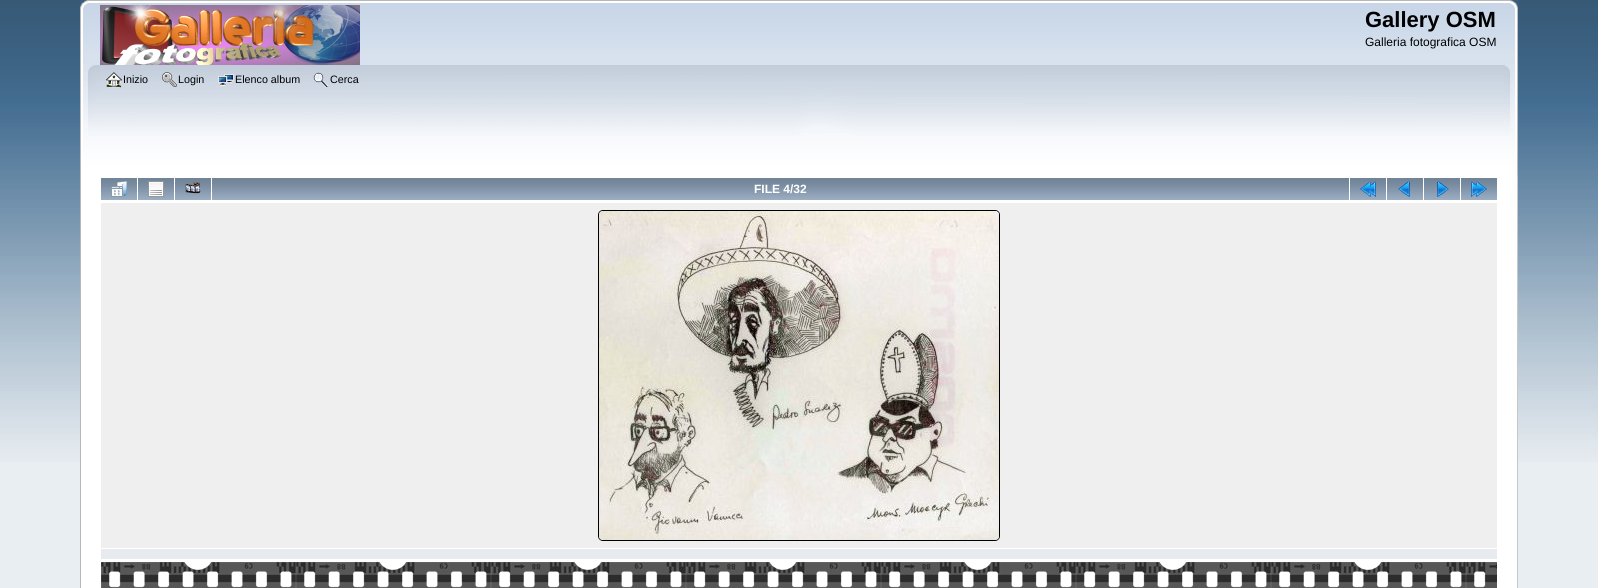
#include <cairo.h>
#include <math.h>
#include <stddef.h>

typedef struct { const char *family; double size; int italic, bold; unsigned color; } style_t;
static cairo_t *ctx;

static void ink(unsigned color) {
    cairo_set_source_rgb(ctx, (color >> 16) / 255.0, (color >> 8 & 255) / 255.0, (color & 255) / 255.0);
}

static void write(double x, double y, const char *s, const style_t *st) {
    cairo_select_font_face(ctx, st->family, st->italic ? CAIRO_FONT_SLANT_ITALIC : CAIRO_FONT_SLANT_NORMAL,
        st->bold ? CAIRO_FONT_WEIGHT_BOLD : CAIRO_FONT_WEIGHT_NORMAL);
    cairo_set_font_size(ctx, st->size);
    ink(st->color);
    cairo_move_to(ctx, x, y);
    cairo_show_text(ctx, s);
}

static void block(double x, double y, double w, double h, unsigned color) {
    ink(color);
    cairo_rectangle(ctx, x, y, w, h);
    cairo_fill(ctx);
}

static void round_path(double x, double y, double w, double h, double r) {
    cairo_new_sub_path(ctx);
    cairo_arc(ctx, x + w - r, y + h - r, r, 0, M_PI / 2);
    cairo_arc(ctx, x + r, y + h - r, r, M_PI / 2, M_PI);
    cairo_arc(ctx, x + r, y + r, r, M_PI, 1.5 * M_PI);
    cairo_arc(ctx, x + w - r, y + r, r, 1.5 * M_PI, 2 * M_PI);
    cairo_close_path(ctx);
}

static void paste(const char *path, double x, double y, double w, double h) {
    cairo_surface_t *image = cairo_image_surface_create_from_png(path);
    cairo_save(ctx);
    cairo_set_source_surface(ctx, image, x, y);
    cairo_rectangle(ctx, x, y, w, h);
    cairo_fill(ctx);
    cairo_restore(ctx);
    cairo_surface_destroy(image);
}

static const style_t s1 = {"Liberation Sans", 22, 0, 1, 0x000000};
static const style_t s2 = {"Liberation Sans", 12, 0, 0, 0x000000};
static const style_t s3 = {"Liberation Sans", 10.75, 0, 0, 0x000000};
static const style_t s4 = {"Liberation Sans", 12, 0, 1, 0xffffff};

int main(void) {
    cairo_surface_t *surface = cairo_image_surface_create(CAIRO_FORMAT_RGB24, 1598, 588);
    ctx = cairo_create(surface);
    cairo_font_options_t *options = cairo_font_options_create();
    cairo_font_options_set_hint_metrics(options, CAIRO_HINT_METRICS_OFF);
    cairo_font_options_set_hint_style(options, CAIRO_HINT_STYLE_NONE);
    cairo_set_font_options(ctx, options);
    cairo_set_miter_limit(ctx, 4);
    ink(0xe9eef2);
    cairo_paint(ctx);
    paste("pic1.png", 0, 0, 1598, 462);
    paste("pic2.png", 80, 0, 1430, 65);
    paste("pic3.png", 1510, 0, 8, 65);
    paste("pic4.png", 100, 5, 260, 60);
    write(1365, 27, "Gallery OSM", &s1);
    write(1365, 46, "Galleria fotografica OSM", &s2);
    paste("pic5.png", 80, 65, 1424, 110);
    paste("pic6.png", 1504, 65, 14, 110);
    paste("pic7.png", 106, 72, 16, 16);
    write(123, 83, "Inizio", &s3);
    paste("pic8.png", 162, 72, 15, 15);
    write(178, 83, "Login", &s3);
    paste("pic9.png", 218, 74, 16, 12);
    write(235, 83, "Elenco album", &s3);
    paste("pic10.png", 313, 72, 16, 15);
    write(330, 83, "Cerca", &s3);
    block(81, 175, 1436, 413, 0xffffff);
    block(80, 175, 1, 413, 0xb7b7b7);
    block(1517, 175, 1, 413, 0xc7c7c7);
    paste("pic11.png", 101, 178, 36, 22);
    paste("pic12.png", 111, 181, 16, 16);
    paste("pic11.png", 138, 178, 36, 22);
    paste("pic13.png", 148, 181, 16, 16);
    paste("pic11.png", 175, 178, 36, 22);
    paste("pic14.png", 185, 182, 16, 12);
    paste("pic15.png", 212, 178, 1137, 22);
    write(754, 193, "FILE 4/32", &s4);
    paste("pic11.png", 1350, 178, 36, 22);
    paste("pic16.png", 1360, 181, 16, 16);
    paste("pic11.png", 1387, 178, 36, 22);
    paste("pic17.png", 1398, 181, 12, 16);
    paste("pic11.png", 1424, 178, 36, 22);
    paste("pic18.png", 1437, 181, 12, 16);
    paste("pic11.png", 1461, 178, 36, 22);
    paste("pic19.png", 1471, 181, 16, 16);
    block(101, 203, 1396, 345, 0xefefef);
    round_path(598.5, 210.5, 401, 330, 4.5);
    ink(0x000000);
    cairo_set_line_width(ctx, 1);
    cairo_stroke(ctx);
    paste("pic20.png", 599, 211, 400, 329);
    block(101, 549, 1396, 10, 0xe7eaef);
    paste("pic21.png", 101, 562, 1396, 26);
    cairo_surface_write_to_png(surface, "screenshot.png");
    cairo_font_options_destroy(options);
    cairo_destroy(ctx);
    cairo_surface_destroy(surface);
    return 0;
}
